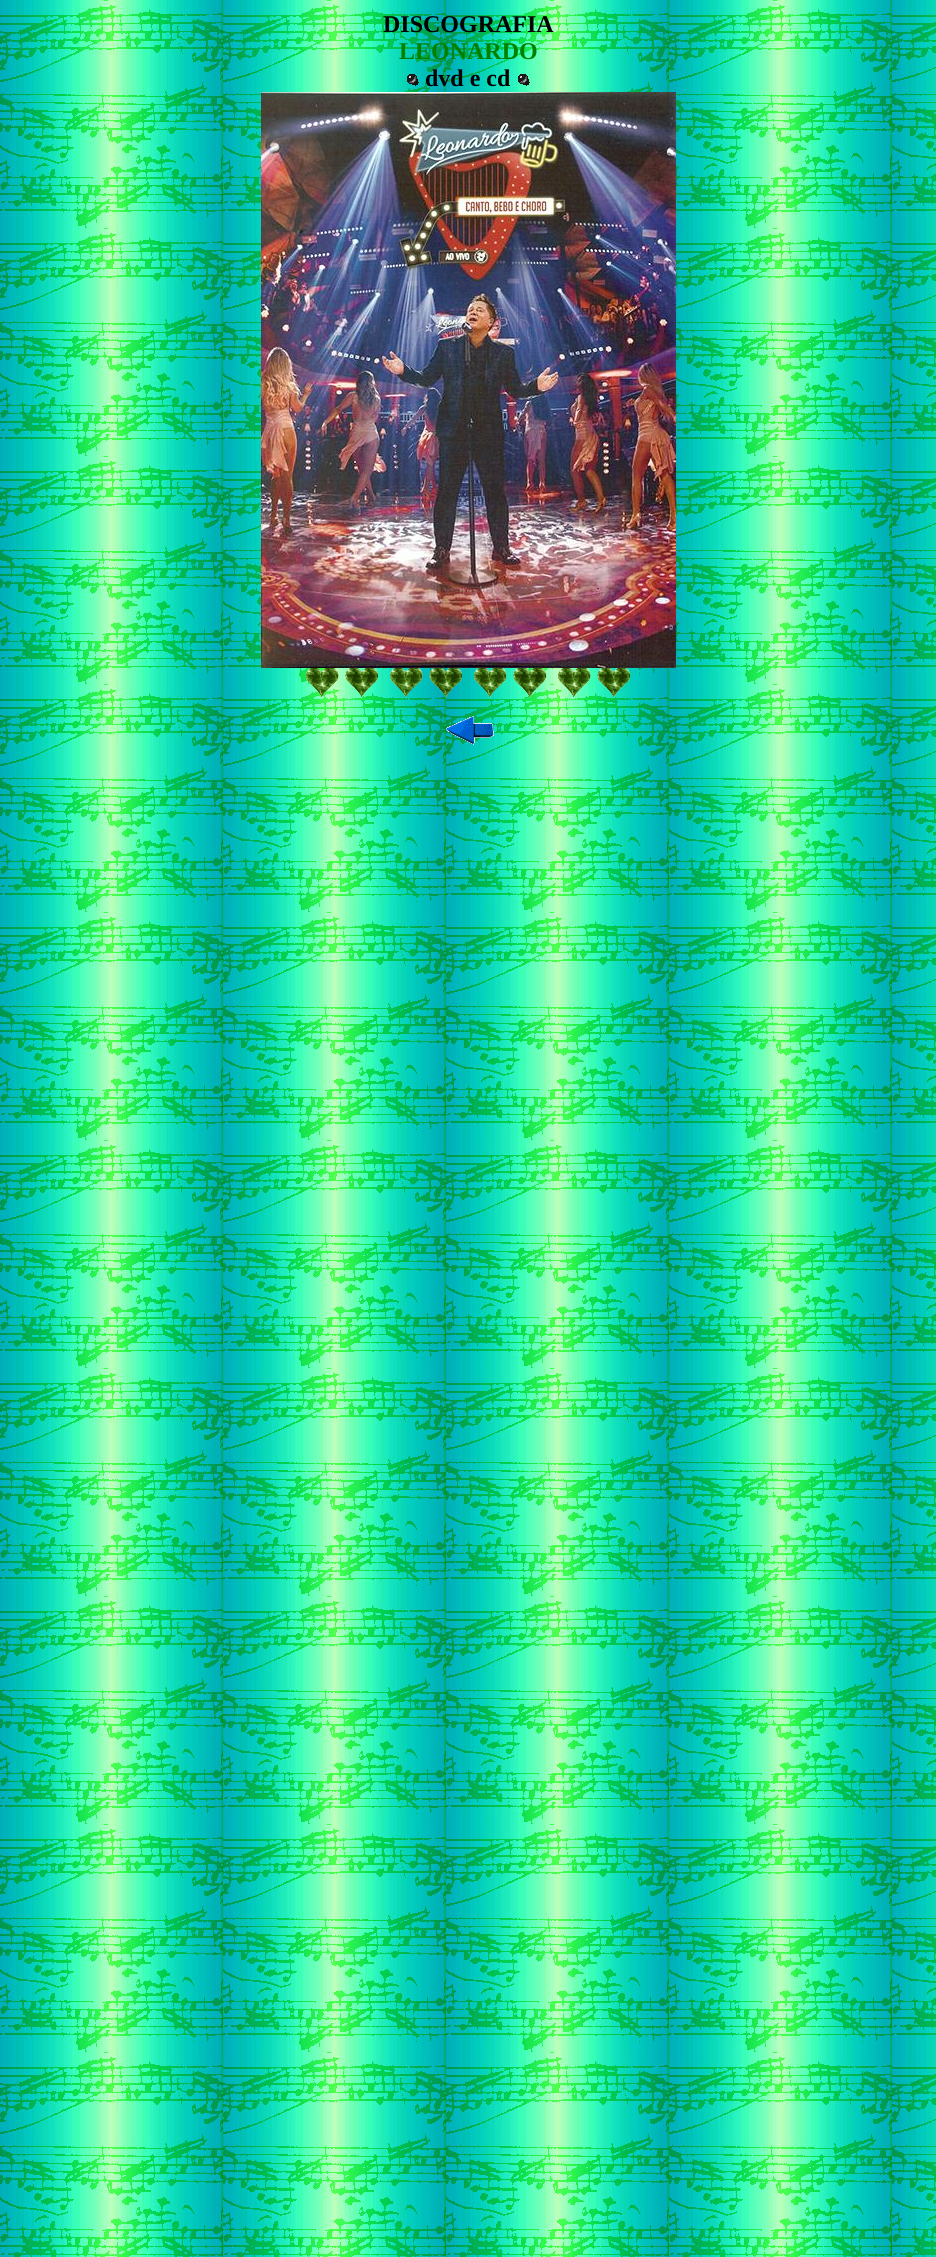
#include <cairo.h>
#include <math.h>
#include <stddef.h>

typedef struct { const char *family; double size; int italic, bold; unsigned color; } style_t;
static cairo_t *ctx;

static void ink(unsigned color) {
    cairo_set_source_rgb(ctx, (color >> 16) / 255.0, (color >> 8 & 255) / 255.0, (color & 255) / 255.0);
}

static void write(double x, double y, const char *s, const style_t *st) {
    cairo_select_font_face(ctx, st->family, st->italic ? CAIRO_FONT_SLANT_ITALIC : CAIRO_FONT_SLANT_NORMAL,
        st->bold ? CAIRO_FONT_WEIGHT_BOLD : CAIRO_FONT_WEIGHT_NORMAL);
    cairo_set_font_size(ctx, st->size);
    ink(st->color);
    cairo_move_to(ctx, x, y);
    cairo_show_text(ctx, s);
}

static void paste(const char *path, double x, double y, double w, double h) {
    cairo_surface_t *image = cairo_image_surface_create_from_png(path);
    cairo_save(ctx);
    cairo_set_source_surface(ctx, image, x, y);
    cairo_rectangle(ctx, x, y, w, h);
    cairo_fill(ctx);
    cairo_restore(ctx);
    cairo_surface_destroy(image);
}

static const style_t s1 = {"Liberation Serif", 24, 0, 1, 0x000000};
static const style_t s2 = {"Liberation Serif", 24, 0, 1, 0x008000};

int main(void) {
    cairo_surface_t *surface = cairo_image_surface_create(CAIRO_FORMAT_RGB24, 936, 2257);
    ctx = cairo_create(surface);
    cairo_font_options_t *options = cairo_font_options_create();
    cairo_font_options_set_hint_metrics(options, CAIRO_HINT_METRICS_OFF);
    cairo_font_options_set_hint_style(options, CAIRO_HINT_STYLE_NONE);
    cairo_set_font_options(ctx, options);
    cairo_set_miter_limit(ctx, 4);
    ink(0xffffff);
    cairo_paint(ctx);
    paste("pic1.png", 0, 0, 936, 2257);
    write(383, 32, "DISCOGRAFIA", &s1);
    write(399, 59, "LEONARDO", &s2);
    paste("pic2.png", 407, 74, 12, 12);
    write(425, 86, "dvd e cd", &s1);
    paste("pic3.png", 518, 74, 12, 12);
    paste("pic4.png", 261, 92, 415, 576);
    paste("pic5.png", 306, 668, 33, 30);
    paste("pic6.png", 345, 668, 34, 30);
    paste("pic7.png", 390, 668, 33, 30);
    paste("pic8.png", 429, 668, 34, 30);
    paste("pic9.png", 474, 668, 33, 30);
    paste("pic10.png", 513, 668, 34, 30);
    paste("pic11.png", 558, 668, 33, 30);
    paste("pic12.png", 597, 668, 34, 30);
    paste("pic13.png", 446, 716, 48, 29);
    cairo_surface_write_to_png(surface, "screenshot.png");
    cairo_font_options_destroy(options);
    cairo_destroy(ctx);
    cairo_surface_destroy(surface);
    return 0;
}
